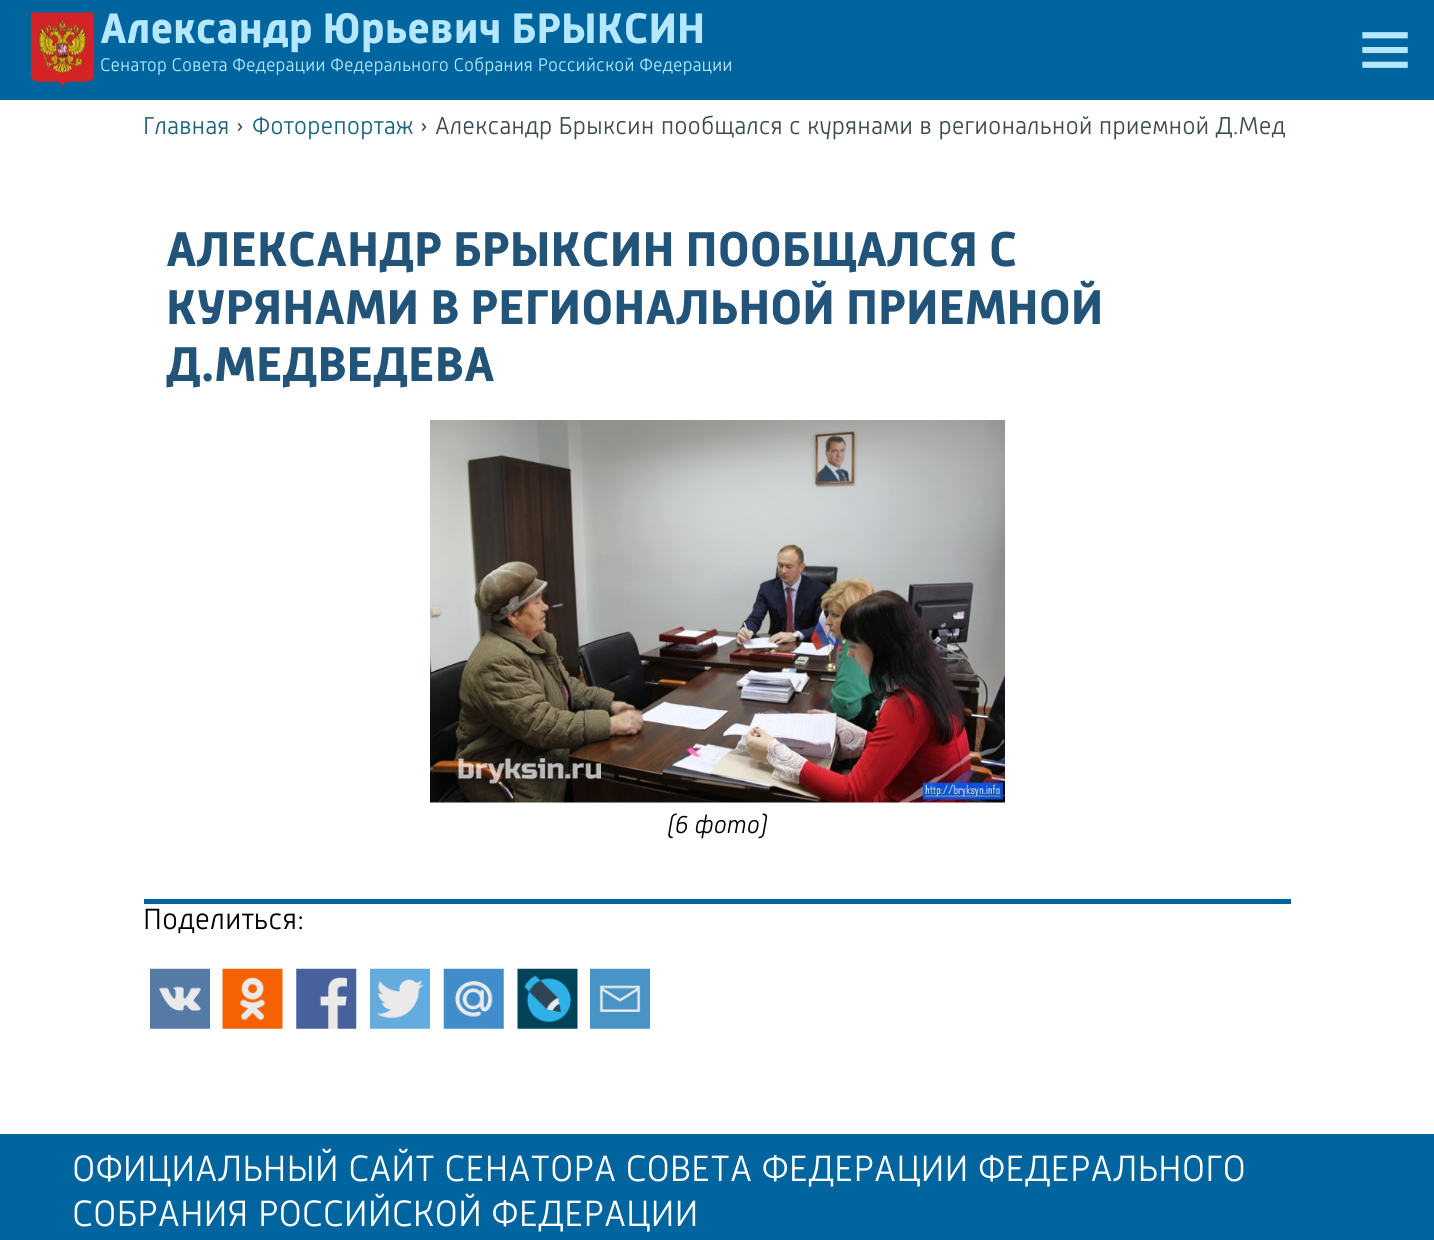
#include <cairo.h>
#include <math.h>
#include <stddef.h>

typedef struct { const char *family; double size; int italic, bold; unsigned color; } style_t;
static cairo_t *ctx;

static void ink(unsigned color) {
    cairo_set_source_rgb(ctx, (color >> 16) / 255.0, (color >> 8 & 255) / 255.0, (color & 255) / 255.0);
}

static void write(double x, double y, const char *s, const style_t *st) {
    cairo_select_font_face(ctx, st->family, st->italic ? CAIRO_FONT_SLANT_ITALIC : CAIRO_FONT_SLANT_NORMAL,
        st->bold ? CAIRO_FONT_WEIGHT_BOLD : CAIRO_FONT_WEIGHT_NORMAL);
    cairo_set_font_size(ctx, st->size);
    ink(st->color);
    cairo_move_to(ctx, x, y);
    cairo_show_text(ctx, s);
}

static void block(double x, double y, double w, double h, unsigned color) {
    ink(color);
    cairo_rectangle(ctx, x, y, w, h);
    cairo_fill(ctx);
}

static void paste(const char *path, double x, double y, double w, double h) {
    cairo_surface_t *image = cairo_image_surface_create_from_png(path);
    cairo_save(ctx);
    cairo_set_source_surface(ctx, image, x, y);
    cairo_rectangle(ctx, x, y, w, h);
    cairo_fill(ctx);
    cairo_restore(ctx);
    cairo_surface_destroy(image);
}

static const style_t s1 = {"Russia", 43.75, 0, 1, 0xb5e8ff};
static const style_t s2 = {"Russia Light", 18.75, 0, 0, 0xb5e8ff};
static const style_t s3 = {"Russia Light", 25, 0, 0, 0x1b6380};
static const style_t s4 = {"Russia Light", 25, 0, 0, 0x3d4a52};
static const style_t s5 = {"Russia", 50, 0, 1, 0x225378};
static const style_t s6 = {"Russia Light", 25, 1, 0, 0x000000};
static const style_t s7 = {"Russia Light", 30, 0, 0, 0x000000};
static const style_t s8 = {"Russia Light", 37.5, 0, 0, 0xffffff};

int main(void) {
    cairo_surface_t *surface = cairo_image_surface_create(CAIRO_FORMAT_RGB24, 1434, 1240);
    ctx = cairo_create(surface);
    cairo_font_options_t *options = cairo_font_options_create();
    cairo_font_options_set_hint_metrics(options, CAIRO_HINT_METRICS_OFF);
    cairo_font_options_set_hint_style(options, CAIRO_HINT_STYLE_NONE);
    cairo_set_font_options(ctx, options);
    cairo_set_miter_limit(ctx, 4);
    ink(0xffffff);
    cairo_paint(ctx);
    block(0, 0, 1434, 100, 0x00649e);
    paste("pic1.png", 30, 12, 65, 76);
    write(100, 43, "Александр Юрьевич БРЫКСИН", &s1);
    write(100, 71, "Сенатор Совета Федерации Федерального Собрания Российской Федерации", &s2);
    paste("pic2.png", 1362, 32, 46, 36);
    write(143, 134, "Главная", &s3);
    write(236, 134, "›", &s4);
    write(252, 134, "Фоторепортаж", &s3);
    write(420, 134, "›", &s4);
    write(435, 134, "Александр Брыксин пообщался с курянами в региональной приемной Д.Мед", &s4);
    write(166, 266, "АЛЕКСАНДР БРЫКСИН ПООБЩАЛСЯ С", &s5);
    write(166, 324, "КУРЯНАМИ В РЕГИОНАЛЬНОЙ ПРИЕМНОЙ", &s5);
    write(166, 381, "Д.МЕДВЕДЕВА", &s5);
    paste("pic3.png", 430, 420, 575, 383);
    write(667, 833, "(6 фото)", &s6);
    block(144, 899, 1147, 5, 0x00649e);
    write(143, 929, "Поделиться:", &s7);
    paste("pic4.png", 150, 968, 60, 61);
    paste("pic5.png", 222, 968, 61, 61);
    paste("pic6.png", 296, 968, 61, 61);
    paste("pic7.png", 370, 968, 60, 61);
    paste("pic8.png", 443, 968, 61, 61);
    paste("pic9.png", 517, 968, 61, 61);
    paste("pic10.png", 590, 968, 60, 61);
    block(0, 1134, 1434, 106, 0x00649e);
    write(72, 1181, "ОФИЦИАЛЬНЫЙ САЙТ СЕНАТОРА СОВЕТА ФЕДЕРАЦИИ ФЕДЕРАЛЬНОГО", &s8);
    write(72, 1226, "СОБРАНИЯ РОССИЙСКОЙ ФЕДЕРАЦИИ", &s8);
    cairo_surface_write_to_png(surface, "screenshot.png");
    cairo_font_options_destroy(options);
    cairo_destroy(ctx);
    cairo_surface_destroy(surface);
    return 0;
}
